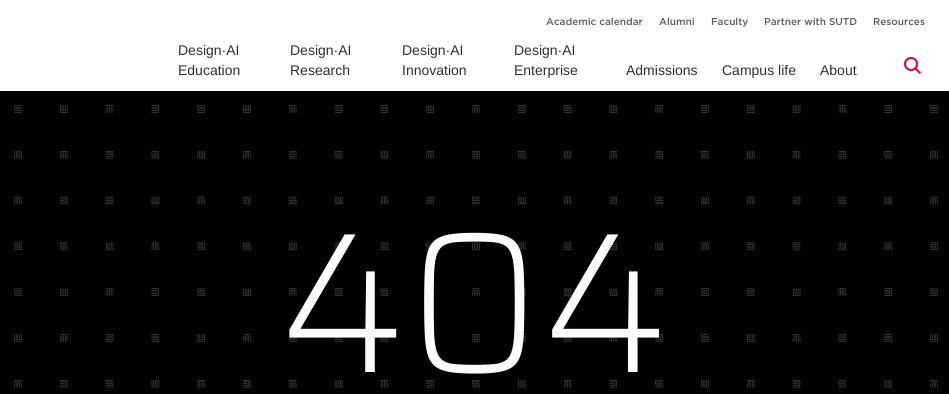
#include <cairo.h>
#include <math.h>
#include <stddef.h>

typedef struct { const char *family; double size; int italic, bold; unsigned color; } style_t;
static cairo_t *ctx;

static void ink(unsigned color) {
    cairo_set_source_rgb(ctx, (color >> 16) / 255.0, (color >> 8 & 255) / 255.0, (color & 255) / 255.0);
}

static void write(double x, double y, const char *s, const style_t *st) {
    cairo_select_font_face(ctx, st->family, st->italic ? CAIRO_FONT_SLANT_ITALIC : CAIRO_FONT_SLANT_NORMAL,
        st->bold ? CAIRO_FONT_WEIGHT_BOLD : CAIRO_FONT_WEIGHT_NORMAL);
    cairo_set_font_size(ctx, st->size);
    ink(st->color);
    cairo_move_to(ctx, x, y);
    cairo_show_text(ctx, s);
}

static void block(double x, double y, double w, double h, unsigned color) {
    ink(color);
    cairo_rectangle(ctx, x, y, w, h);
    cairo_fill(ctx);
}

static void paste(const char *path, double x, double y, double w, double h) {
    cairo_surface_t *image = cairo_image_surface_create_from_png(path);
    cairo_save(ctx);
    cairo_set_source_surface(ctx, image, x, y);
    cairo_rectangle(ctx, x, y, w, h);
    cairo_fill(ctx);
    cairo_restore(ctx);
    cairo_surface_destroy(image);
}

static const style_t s1 = {"Gotham Medium", 10, 0, 0, 0x5d5d5d};
static const style_t s2 = {"Liberation Sans", 14, 0, 0, 0x2e2e2e};
static const style_t s3 = {"Saira ExtraLight", 200, 0, 0, 0xfcfcfc};

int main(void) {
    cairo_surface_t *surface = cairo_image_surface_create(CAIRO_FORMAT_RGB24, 949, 394);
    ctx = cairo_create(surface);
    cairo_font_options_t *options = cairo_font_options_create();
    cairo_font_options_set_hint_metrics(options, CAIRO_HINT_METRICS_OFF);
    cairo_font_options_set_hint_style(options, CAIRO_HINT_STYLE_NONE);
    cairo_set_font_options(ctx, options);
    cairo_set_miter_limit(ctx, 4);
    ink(0xffffff);
    cairo_paint(ctx);
    write(546, 25, "Academic calendar", &s1);
    write(659, 25, "Alumni", &s1);
    write(711, 25, "Faculty", &s1);
    write(764, 25, "Partner with SUTD", &s1);
    write(873, 25, "Resources", &s1);
    write(178, 55, "Design·AI", &s2);
    write(178, 75, "Education", &s2);
    write(290, 55, "Design·AI", &s2);
    write(290, 75, "Research", &s2);
    write(402, 55, "Design·AI", &s2);
    write(402, 75, "Innovation", &s2);
    write(514, 55, "Design·AI", &s2);
    write(514, 75, "Enterprise", &s2);
    write(626, 75, "Admissions", &s2);
    write(722, 75, "Campus life", &s2);
    write(820, 75, "About", &s2);
    paste("pic1.png", 904, 57, 17, 17);
    block(0, 91, 949, 303, 0x000000);
    paste("pic2.png", 14, 105, 924, 283);
    write(279, 372, "404", &s3);
    cairo_surface_write_to_png(surface, "screenshot.png");
    cairo_font_options_destroy(options);
    cairo_destroy(ctx);
    cairo_surface_destroy(surface);
    return 0;
}
